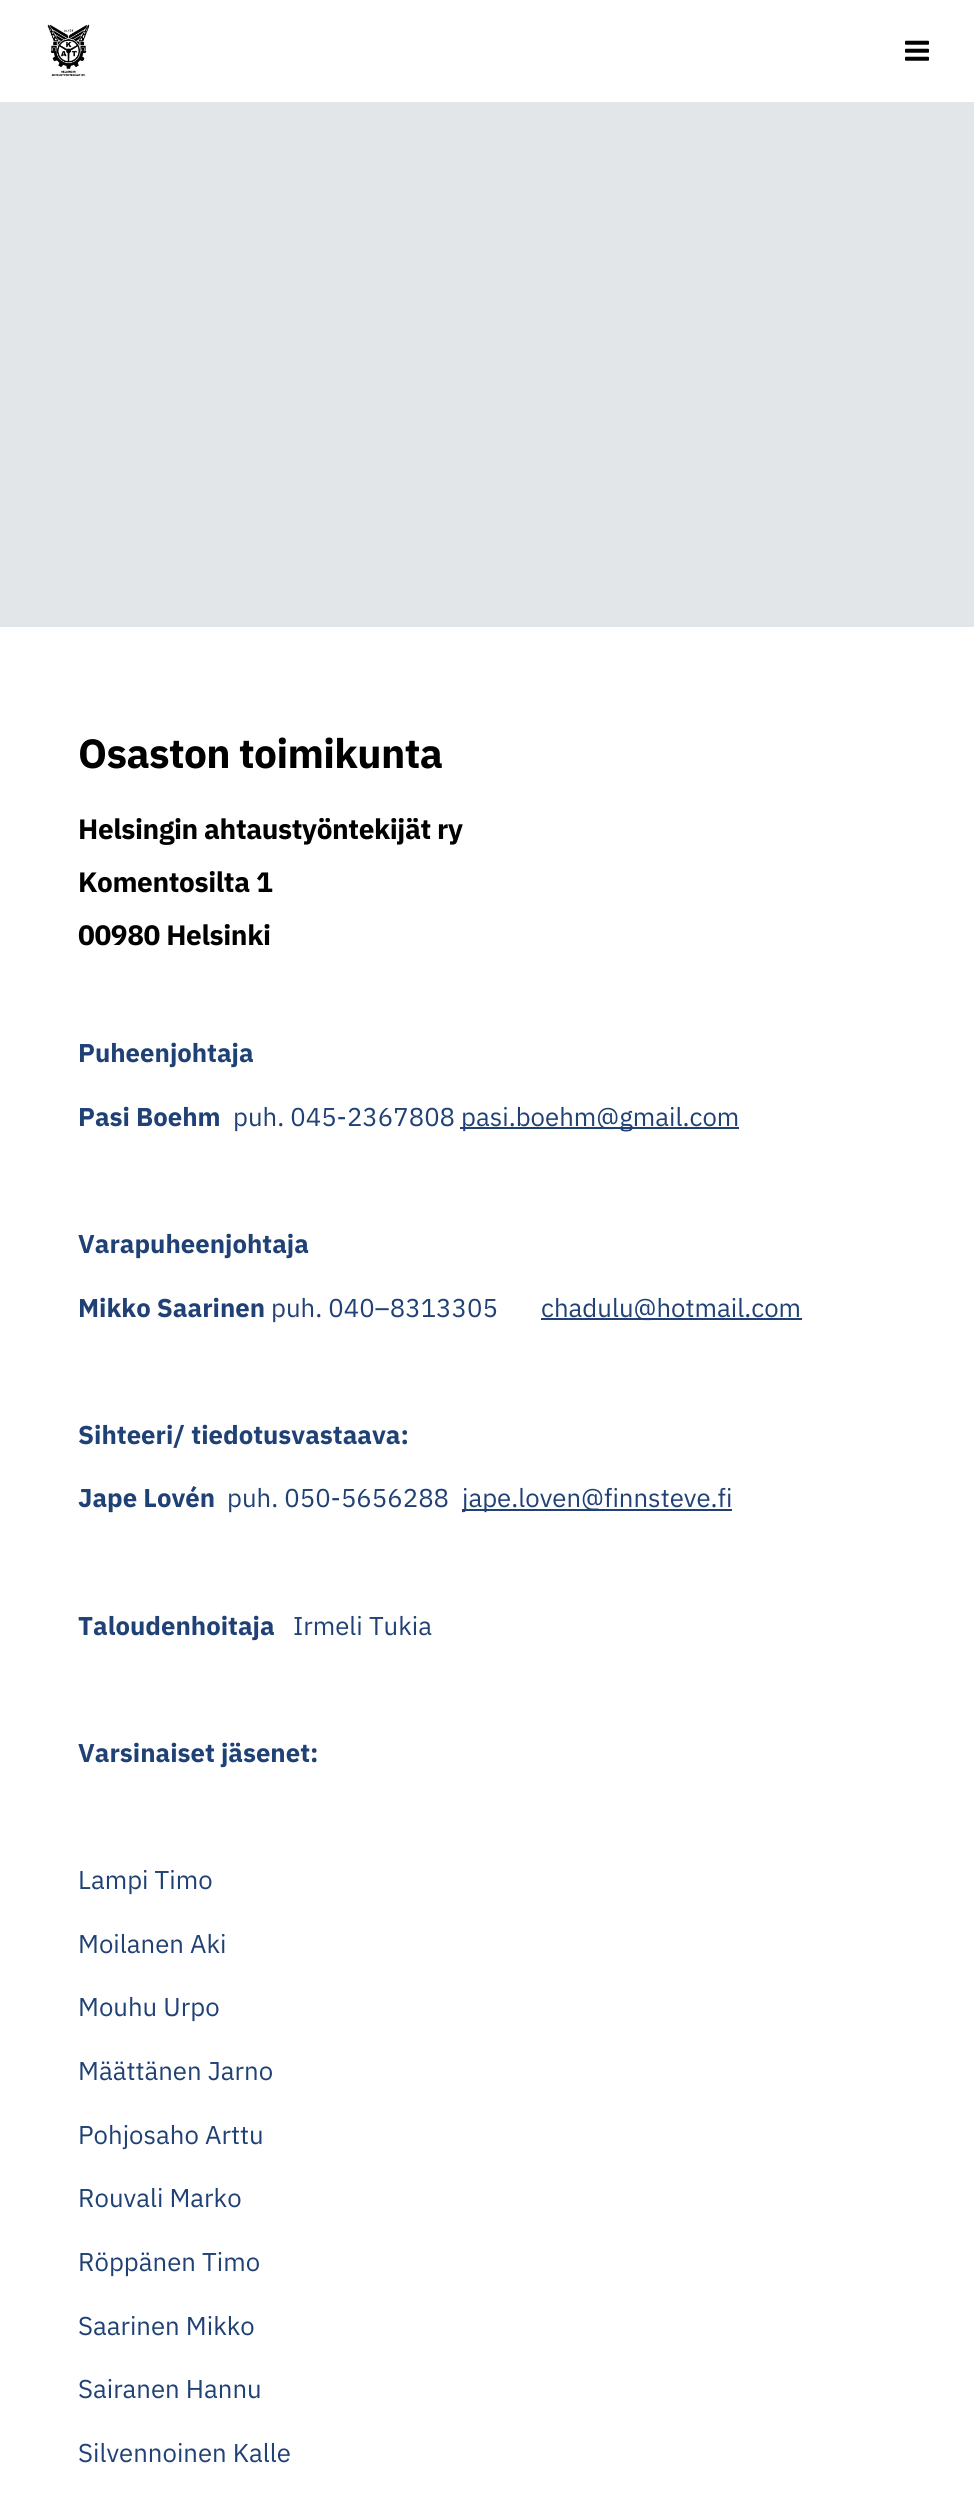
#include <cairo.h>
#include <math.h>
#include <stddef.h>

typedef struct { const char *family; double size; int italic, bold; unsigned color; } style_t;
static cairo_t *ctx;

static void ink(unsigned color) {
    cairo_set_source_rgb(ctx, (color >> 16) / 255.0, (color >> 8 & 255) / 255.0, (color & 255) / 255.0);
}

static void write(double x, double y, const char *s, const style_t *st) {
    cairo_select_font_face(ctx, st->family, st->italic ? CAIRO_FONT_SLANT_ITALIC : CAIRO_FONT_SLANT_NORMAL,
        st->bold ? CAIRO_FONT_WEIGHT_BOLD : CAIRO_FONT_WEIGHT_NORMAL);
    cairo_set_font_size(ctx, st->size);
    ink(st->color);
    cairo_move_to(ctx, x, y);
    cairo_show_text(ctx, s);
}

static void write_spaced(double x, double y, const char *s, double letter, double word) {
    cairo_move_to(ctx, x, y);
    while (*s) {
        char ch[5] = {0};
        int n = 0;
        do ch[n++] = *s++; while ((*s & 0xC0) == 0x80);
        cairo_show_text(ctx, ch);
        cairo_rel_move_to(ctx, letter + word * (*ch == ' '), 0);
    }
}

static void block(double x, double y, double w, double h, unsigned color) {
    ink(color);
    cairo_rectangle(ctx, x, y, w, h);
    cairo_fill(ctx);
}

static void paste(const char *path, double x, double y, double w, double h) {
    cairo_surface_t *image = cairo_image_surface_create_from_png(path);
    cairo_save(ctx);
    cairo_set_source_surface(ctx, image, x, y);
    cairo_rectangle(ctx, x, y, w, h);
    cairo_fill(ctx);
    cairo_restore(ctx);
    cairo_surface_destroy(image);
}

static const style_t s1 = {"IBM Plex Sans", 25.75, 0, 1, 0x204175};
static const style_t s2 = {"IBM Plex Sans", 25.75, 0, 0, 0x204175};

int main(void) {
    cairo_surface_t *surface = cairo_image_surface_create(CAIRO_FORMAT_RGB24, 974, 2519);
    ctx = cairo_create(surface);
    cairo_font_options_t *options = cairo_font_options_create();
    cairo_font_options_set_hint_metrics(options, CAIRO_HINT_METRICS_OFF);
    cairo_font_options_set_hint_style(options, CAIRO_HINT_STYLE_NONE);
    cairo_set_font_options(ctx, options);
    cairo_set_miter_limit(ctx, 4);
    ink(0xffffff);
    cairo_paint(ctx);
    paste("pic1.png", 47, 24, 43, 53);
    paste("pic2.png", 905, 40, 24, 21);
    block(0, 102, 974, 525, 0xe2e6e9);
    cairo_select_font_face(ctx, "IBM Plex Sans", CAIRO_FONT_SLANT_NORMAL, CAIRO_FONT_WEIGHT_BOLD);
    cairo_set_font_size(ctx, 40.75);
    ink(0x000000);
    write_spaced(78, 768, "Osaston toimikunta", -0.6, 0);
    cairo_set_font_size(ctx, 28);
    write_spaced(78, 839, "Helsingin ahtaustyöntekijät ry", -0.4, 0);
    write_spaced(78, 892, "Komentosilta 1", -0.4, 0);
    write_spaced(78, 945, "00980 Helsinki", -0.4, 0);
    write(78, 1062, "Puheenjohtaja", &s1);
    write(78, 1126, "Pasi Boehm", &s1);
    write(233, 1126, "puh. 045-2367808", &s2);
    block(460, 1127, 279, 2, 0x204175);
    write(461, 1126, "pasi.boehm@gmail.com", &s2);
    write(78, 1253, "Varapuheenjohtaja", &s1);
    write(78, 1317, "Mikko Saarinen", &s1);
    write(271, 1317, "puh. 040–8313305", &s2);
    block(541, 1318, 261, 2, 0x204175);
    write(541, 1317, "chadulu@hotmail.com", &s2);
    write(78, 1444, "Sihteeri/ tiedotusvastaava:", &s1);
    write(78, 1507, "Jape Lovén", &s1);
    write(227, 1507, "puh. 050-5656288", &s2);
    block(462, 1509, 270, 2, 0x204175);
    write(462, 1507, "jape.loven@finnsteve.fi", &s2);
    write(78, 1635, "Taloudenhoitaja", &s1);
    write(293, 1635, "Irmeli Tukia", &s2);
    write(78, 1762, "Varsinaiset jäsenet:", &s1);
    write(78, 1889, "Lampi Timo", &s2);
    write(78, 1953, "Moilanen Aki", &s2);
    write(78, 2016, "Mouhu Urpo", &s2);
    write(78, 2080, "Määttänen Jarno", &s2);
    write(78, 2144, "Pohjosaho Arttu", &s2);
    write(78, 2207, "Rouvali Marko", &s2);
    write(78, 2271, "Röppänen Timo", &s2);
    write(78, 2335, "Saarinen Mikko", &s2);
    write(78, 2398, "Sairanen Hannu", &s2);
    write(78, 2462, "Silvennoinen Kalle", &s2);
    cairo_surface_write_to_png(surface, "screenshot.png");
    cairo_font_options_destroy(options);
    cairo_destroy(ctx);
    cairo_surface_destroy(surface);
    return 0;
}
